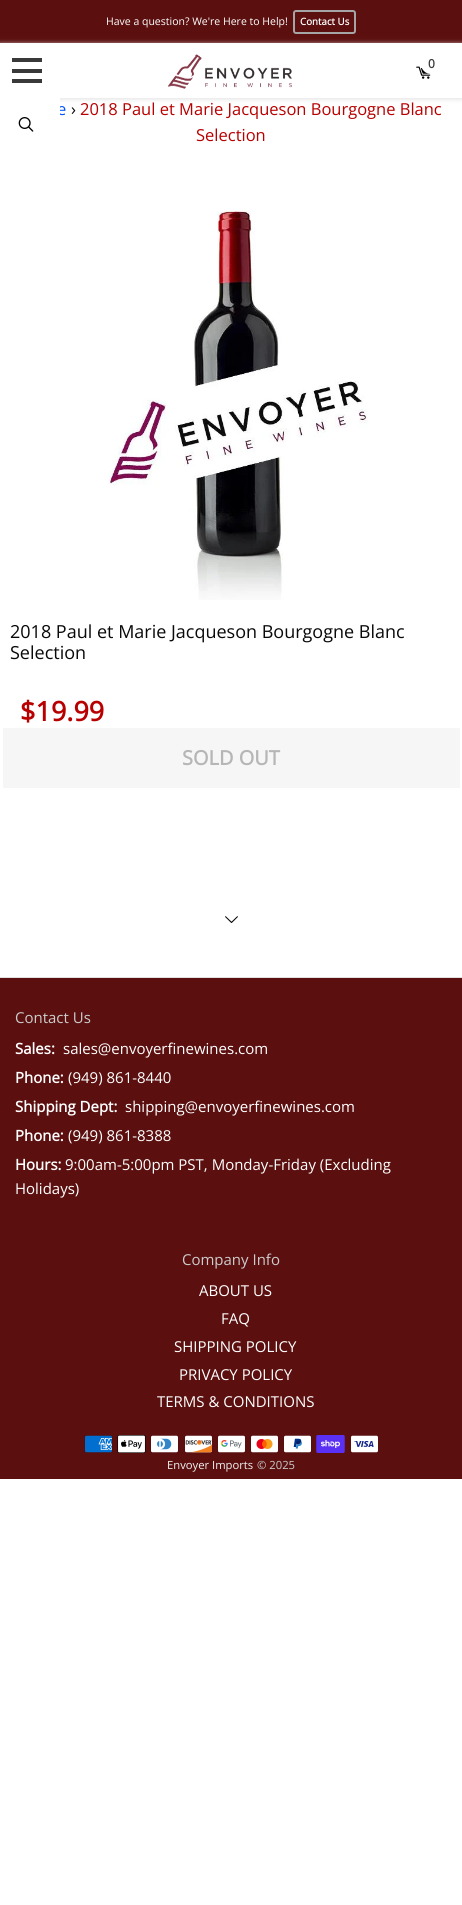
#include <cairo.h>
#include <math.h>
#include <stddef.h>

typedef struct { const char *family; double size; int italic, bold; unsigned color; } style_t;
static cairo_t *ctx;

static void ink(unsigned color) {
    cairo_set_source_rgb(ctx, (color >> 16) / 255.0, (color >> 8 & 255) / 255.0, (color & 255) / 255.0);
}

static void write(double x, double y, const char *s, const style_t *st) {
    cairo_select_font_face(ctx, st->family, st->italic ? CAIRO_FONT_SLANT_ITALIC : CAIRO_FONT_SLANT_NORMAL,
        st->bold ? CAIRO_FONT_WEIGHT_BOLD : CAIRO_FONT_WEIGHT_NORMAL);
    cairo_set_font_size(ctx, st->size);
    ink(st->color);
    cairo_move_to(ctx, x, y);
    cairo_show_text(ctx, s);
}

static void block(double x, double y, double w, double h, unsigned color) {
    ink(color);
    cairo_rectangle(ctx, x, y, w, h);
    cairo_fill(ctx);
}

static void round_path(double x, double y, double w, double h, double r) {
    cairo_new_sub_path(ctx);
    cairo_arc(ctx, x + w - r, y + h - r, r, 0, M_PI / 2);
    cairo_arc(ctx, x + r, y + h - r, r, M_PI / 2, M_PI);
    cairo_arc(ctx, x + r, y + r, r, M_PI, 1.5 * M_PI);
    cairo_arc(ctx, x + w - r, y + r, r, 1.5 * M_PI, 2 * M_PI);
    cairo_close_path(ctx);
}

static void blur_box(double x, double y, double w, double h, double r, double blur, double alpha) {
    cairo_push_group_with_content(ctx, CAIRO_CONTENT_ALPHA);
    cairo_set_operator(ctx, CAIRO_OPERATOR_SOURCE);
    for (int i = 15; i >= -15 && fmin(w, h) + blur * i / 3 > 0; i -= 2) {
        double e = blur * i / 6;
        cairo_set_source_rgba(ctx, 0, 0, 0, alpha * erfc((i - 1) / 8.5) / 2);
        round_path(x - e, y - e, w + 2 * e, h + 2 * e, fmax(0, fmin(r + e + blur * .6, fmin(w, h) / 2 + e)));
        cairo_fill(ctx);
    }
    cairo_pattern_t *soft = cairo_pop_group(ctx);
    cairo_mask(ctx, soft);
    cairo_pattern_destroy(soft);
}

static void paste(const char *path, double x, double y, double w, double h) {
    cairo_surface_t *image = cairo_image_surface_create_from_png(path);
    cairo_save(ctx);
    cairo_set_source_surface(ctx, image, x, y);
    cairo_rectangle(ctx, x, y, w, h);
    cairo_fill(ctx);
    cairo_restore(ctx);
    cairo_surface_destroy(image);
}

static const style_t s1 = {"Open Sans", 10.5, 0, 0, 0xffffff};
static const style_t s2 = {"Open Sans", 9.75, 0, 1, 0xffffff};
static const style_t s3 = {"Open Sans", 12, 0, 1, 0x3c3c3c};
static const style_t s4 = {"Open Sans", 16.5, 0, 0, 0x0056ff};
static const style_t s5 = {"Open Sans", 16.5, 0, 0, 0x090909};
static const style_t s6 = {"Open Sans", 16.5, 0, 0, 0xb80000};
static const style_t s7 = {"Open Sans", 18, 0, 0, 0x090909};
static const style_t s8 = {"Open Sans", 27, 0, 1, 0xb80000};
static const style_t s9 = {"Open Sans", 20, 0, 1, 0xb6b6b6};
static const style_t s10 = {"Open Sans", 15, 0, 0, 0xcccccc};
static const style_t s11 = {"Open Sans", 15, 0, 1, 0xffffff};
static const style_t s12 = {"Open Sans", 15, 0, 0, 0xffffff};
static const style_t s13 = {"Open Sans", 11.25, 0, 0, 0xf2f2f2};
static const style_t s14 = {"Open Sans", 11.25, 0, 0, 0xcccccc};

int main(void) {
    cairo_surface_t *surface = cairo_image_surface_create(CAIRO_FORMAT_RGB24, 462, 1905);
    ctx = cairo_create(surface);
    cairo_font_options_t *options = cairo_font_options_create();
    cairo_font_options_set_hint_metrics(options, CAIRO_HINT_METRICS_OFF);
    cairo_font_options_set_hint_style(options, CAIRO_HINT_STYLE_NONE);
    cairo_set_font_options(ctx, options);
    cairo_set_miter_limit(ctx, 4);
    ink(0xffffff);
    cairo_paint(ctx);
    block(0, 0, 462, 43, 0x5b0f0f);
    write(106, 25, "Have a question? We're Here to Help!", &s1);
    round_path(294, 11, 61, 22, 2);
    ink(0xa5a5a5);
    cairo_stroke(ctx);
    write(300, 25, "Contact Us", &s2);
    cairo_save(ctx);
    cairo_set_fill_rule(ctx, CAIRO_FILL_RULE_EVEN_ODD);
    cairo_new_path(ctx);
    cairo_move_to(ctx, 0, 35);
    cairo_line_to(ctx, 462, 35);
    cairo_line_to(ctx, 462, 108);
    cairo_line_to(ctx, 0, 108);
    cairo_close_path(ctx);
    cairo_move_to(ctx, 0, 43);
    cairo_line_to(ctx, 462, 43);
    cairo_line_to(ctx, 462, 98);
    cairo_line_to(ctx, 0, 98);
    cairo_close_path(ctx);
    cairo_clip(ctx);
    ink(0xe0e0e0);
    blur_box(0, 44, 462, 55, 0, 2.5, 1);
    cairo_restore(ctx);
    block(12, 58, 30, 4, 0x393939);
    block(12, 69, 30, 4, 0x393939);
    block(12, 79, 30, 4, 0x393939);
    paste("pic1.png", 168, 54, 124, 35);
    paste("pic2.png", 416, 66, 15, 13);
    ink(0xffffff);
    cairo_arc(ctx, 431, 64, 10, 0, 2 * M_PI);
    cairo_fill(ctx);
    write(428, 68, "0", &s3);
    write(57, 115, "e", &s4);
    block(0, 98, 60, 17, 0xffffff);
    paste("pic3.png", 18, 117, 16, 15);
    write(71, 115, "›", &s5);
    write(80, 115, "2018 Paul et Marie Jacqueson Bourgogne Blanc", &s6);
    write(196, 141, "Selection", &s6);
    paste("pic4.png", 109, 210, 260, 390);
    write(10, 638, "2018 Paul et Marie Jacqueson Bourgogne Blanc", &s7);
    write(10, 659, "Selection", &s7);
    write(20, 721, "$19.99", &s8);
    block(3, 728, 457, 60, 0xf6f6f6);
    write(182, 765, "SOLD OUT", &s9);
    paste("pic5.png", 225, 916, 13, 7);
    block(0, 978, 462, 501, 0x5b0f0f);
    block(0, 977, 462, 1, 0xe0e0e0);
    write(15, 1023, "Contact Us", &s10);
    write(15, 1054, "Sales:", &s11);
    write(63, 1054, "sales@envoyerfinewines.com", &s12);
    write(15, 1083, "Phone:", &s11);
    write(68, 1083, "(949) 861-8440", &s12);
    write(15, 1112, "Shipping Dept:", &s11);
    write(125, 1112, "shipping@envoyerfinewines.com", &s12);
    write(15, 1141, "Phone:", &s11);
    write(68, 1141, "(949) 861-8388", &s12);
    write(15, 1170, "Hours:", &s11);
    write(65, 1170, "9:00am-5:00pm PST, Monday-Friday (Excluding", &s12);
    write(15, 1194, "Holidays)", &s12);
    write(182, 1265, "Company Info", &s10);
    write(199, 1296, "ABOUT US", &s12);
    write(221, 1324, "FAQ", &s12);
    write(174, 1352, "SHIPPING POLICY", &s12);
    write(179, 1380, "PRIVACY POLICY", &s12);
    write(157, 1407, "TERMS & CONDITIONS", &s12);
    paste("pic6.png", 84, 1435, 29, 18);
    paste("pic7.png", 117, 1435, 29, 18);
    paste("pic8.png", 150, 1435, 29, 18);
    paste("pic9.png", 184, 1435, 28, 18);
    paste("pic10.png", 217, 1435, 28, 18);
    paste("pic11.png", 250, 1435, 28, 18);
    paste("pic12.png", 283, 1435, 29, 18);
    paste("pic13.png", 316, 1435, 29, 18);
    paste("pic14.png", 350, 1435, 28, 18);
    write(167, 1469, "Envoyer Imports", &s13);
    write(257, 1469, "© 2025", &s14);
    cairo_surface_write_to_png(surface, "screenshot.png");
    cairo_font_options_destroy(options);
    cairo_destroy(ctx);
    cairo_surface_destroy(surface);
    return 0;
}
